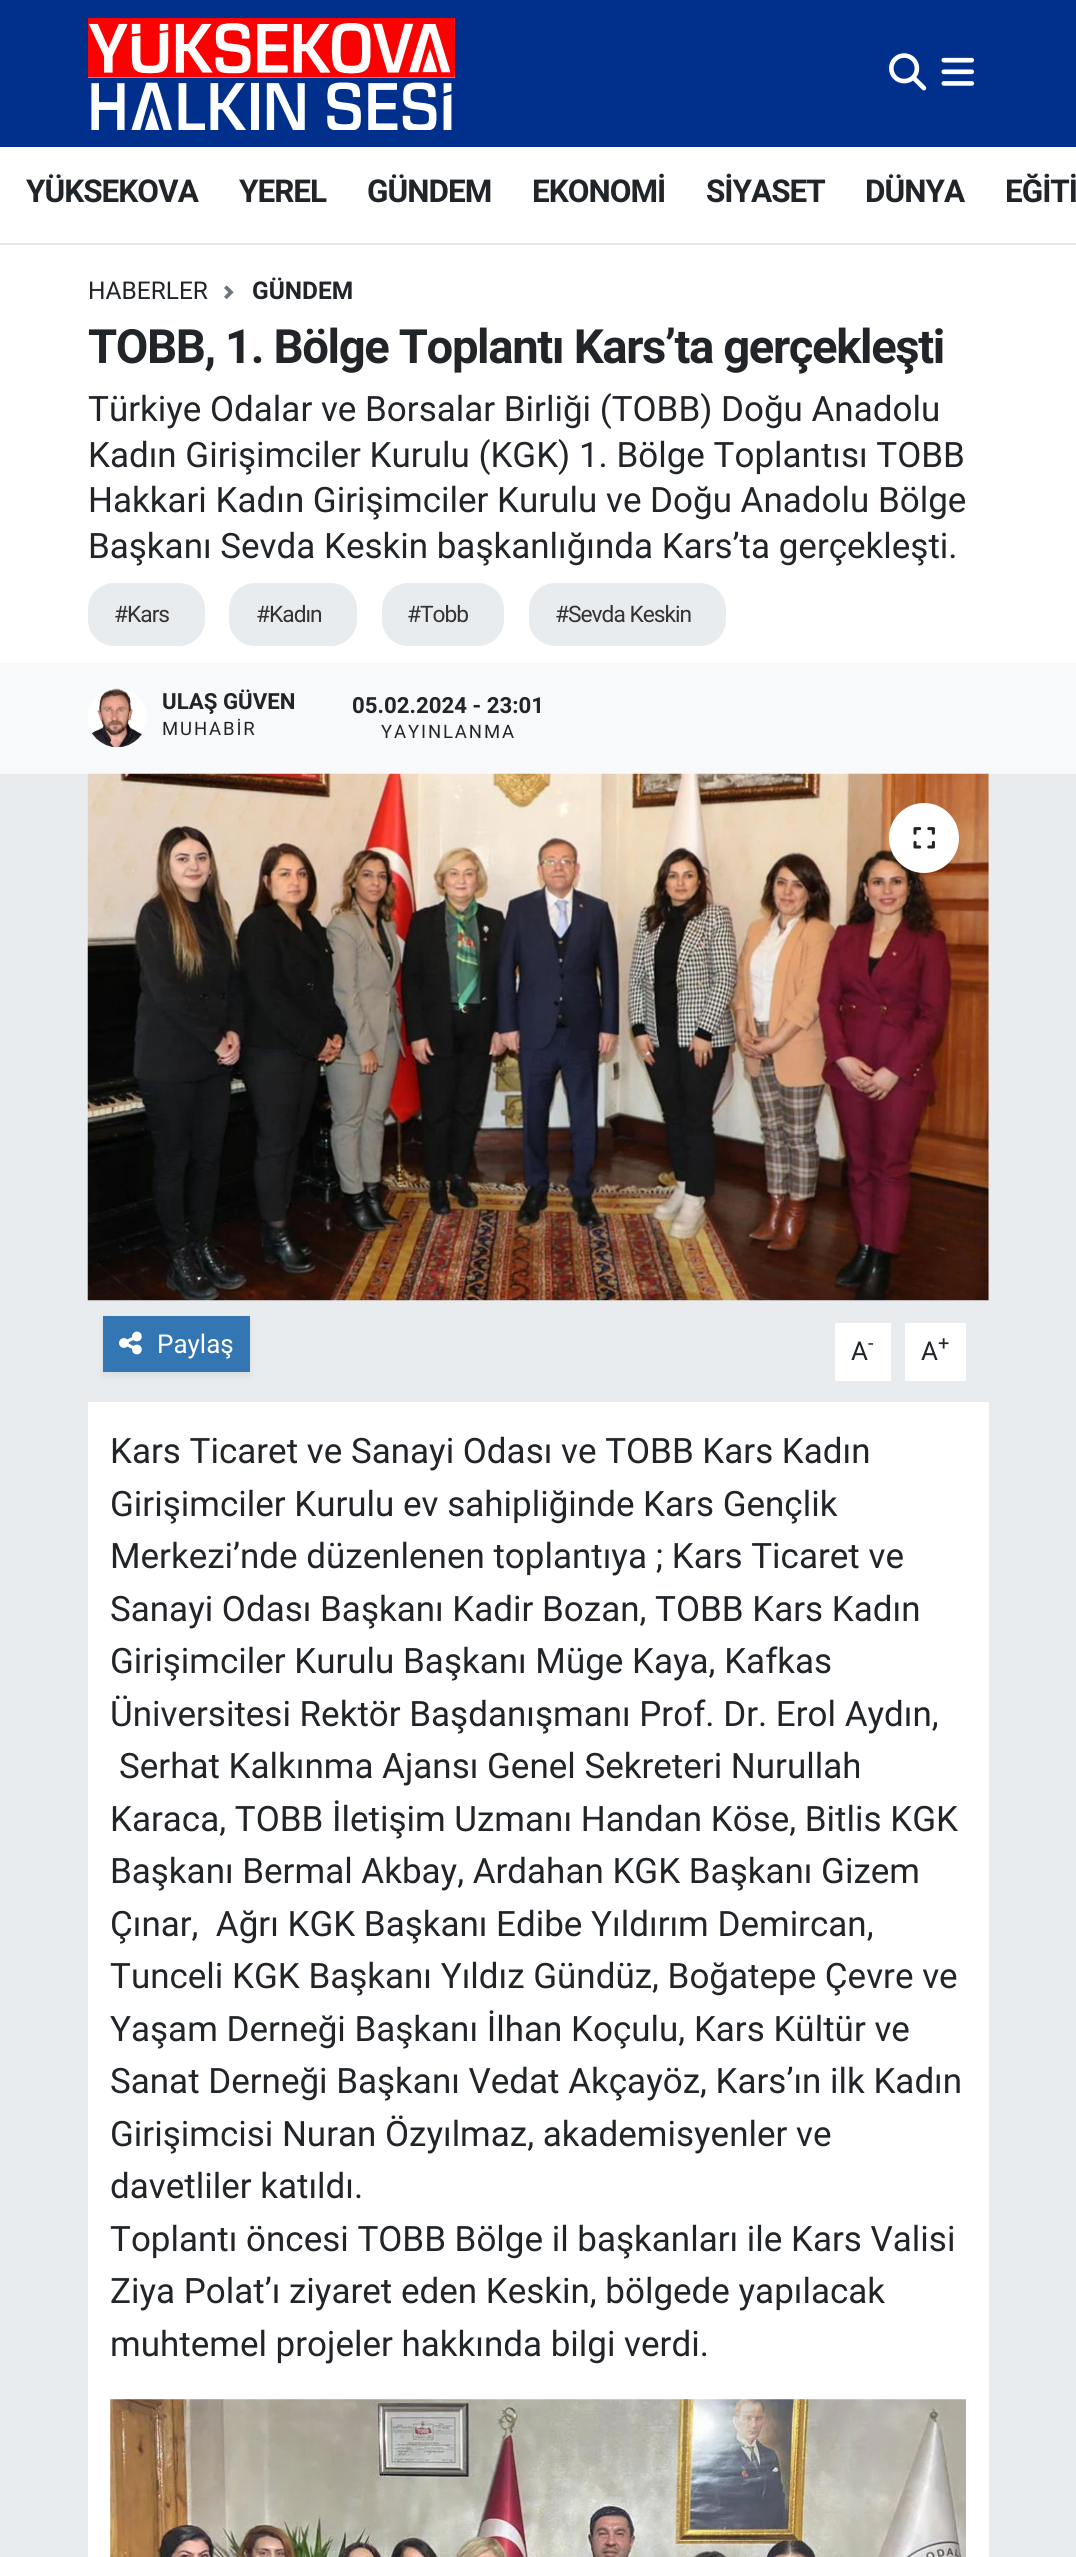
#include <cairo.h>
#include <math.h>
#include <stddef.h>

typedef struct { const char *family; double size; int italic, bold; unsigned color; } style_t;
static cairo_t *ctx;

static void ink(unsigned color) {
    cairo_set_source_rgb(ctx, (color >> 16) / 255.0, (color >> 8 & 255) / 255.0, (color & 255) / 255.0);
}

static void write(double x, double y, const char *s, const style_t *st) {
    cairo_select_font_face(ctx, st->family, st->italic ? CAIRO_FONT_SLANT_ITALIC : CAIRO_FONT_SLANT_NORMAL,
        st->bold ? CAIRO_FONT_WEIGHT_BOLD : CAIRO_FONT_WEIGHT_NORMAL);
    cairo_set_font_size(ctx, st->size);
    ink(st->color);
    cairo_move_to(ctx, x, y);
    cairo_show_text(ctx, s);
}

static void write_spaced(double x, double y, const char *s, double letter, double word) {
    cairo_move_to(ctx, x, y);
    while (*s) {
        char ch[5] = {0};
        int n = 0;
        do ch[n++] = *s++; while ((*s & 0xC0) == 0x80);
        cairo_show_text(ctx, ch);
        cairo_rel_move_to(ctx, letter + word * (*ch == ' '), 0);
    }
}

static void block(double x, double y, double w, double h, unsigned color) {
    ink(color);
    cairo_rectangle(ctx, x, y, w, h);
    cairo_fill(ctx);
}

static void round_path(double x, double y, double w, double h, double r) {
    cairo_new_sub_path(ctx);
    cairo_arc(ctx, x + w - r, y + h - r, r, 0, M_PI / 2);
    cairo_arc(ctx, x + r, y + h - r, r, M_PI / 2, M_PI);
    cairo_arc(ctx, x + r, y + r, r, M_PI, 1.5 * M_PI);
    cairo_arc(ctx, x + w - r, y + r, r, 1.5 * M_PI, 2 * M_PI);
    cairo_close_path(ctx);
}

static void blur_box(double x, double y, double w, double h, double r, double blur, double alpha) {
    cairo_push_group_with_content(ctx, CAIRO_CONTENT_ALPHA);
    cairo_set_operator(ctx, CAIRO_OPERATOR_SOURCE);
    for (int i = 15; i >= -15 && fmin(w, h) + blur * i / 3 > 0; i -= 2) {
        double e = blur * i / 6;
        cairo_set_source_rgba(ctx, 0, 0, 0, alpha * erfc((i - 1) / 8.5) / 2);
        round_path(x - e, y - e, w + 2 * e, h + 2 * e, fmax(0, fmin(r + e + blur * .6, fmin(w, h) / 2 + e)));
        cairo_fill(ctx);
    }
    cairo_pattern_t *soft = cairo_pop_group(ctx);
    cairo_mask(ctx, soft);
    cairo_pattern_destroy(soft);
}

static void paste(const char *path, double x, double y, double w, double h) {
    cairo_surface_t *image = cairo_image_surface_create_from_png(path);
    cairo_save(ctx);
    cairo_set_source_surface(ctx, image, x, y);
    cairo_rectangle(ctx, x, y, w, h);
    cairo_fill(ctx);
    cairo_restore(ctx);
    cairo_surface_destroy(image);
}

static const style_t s1 = {"Roboto", 24.5, 0, 0, 0x212529};
static const style_t s2 = {"Roboto", 24.5, 0, 1, 0x212529};
static const style_t s3 = {"Roboto", 35, 0, 0, 0x212529};
static const style_t s4 = {"Roboto", 22.25, 0, 1, 0x212529};
static const style_t s5 = {"Roboto", 26, 0, 0, 0xffffff};
static const style_t s6 = {"Roboto", 26, 0, 0, 0x212529};
static const style_t s7 = {"Roboto", 20, 0, 0, 0x212529};

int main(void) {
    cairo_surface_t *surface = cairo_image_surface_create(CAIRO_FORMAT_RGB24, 1076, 2557);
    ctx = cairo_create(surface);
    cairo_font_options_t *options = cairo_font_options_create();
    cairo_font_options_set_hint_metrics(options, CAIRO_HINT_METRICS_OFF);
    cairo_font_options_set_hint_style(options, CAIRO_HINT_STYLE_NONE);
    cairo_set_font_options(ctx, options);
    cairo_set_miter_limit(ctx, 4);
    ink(0xe9ecef);
    cairo_paint(ctx);
    block(0, 0, 1076, 147, 0x002f8c);
    paste("pic1.png", 88, 18, 367, 112);
    paste("pic2.png", 889, 53, 38, 38);
    paste("pic3.png", 941, 57, 33, 29);
    block(0, 147, 1076, 96, 0xffffff);
    block(0, 243, 1076, 2, 0xe6e6e6);
    cairo_select_font_face(ctx, "Roboto", CAIRO_FONT_SLANT_NORMAL, CAIRO_FONT_WEIGHT_BOLD);
    cairo_set_font_size(ctx, 31.5);
    ink(0x212529);
    write_spaced(26, 202, "YÜKSEKOVA", -1, 0);
    write_spaced(239, 202, "YEREL", -1, 0);
    write_spaced(367, 202, "GÜNDEM", -1, 0);
    write_spaced(532, 202, "EKONOMİ", -1, 0);
    write_spaced(706, 202, "SİYASET", -1, 0);
    write_spaced(865, 202, "DÜNYA", -1, 0);
    write_spaced(1005, 202, "EĞİTİ", -1, 0);
    block(0, 245, 1076, 418, 0xffffff);
    write(88, 299, "HABERLER", &s1);
    paste("pic4.png", 224, 285, 10, 14);
    write(252, 299, "GÜNDEM", &s2);
    cairo_set_font_size(ctx, 47.25);
    write_spaced(88, 363, "TOBB, 1. Bölge Toplantı Kars’ta gerçekleşti", -1.4, 0);
    write(88, 421, "Türkiye Odalar ve Borsalar Birliği (TOBB) Doğu Anadolu", &s3);
    write(88, 467, "Kadın Girişimciler Kurulu (KGK) 1. Bölge Toplantısı TOBB", &s3);
    write(88, 512, "Hakkari Kadın Girişimciler Kurulu ve Doğu Anadolu Bölge", &s3);
    write(88, 558, "Başkanı Sevda Keskin başkanlığında Kars’ta gerçekleşti.", &s3);
    ink(0xe9ecef);
    round_path(88, 583, 117, 63, 26);
    cairo_fill(ctx);
    cairo_set_font_size(ctx, 22.75);
    ink(0x333333);
    write_spaced(114, 622, "#Kars", -1, 0);
    ink(0xe9ecef);
    round_path(229, 583, 128, 63, 26);
    cairo_fill(ctx);
    ink(0x333333);
    write_spaced(256, 622, "#Kadın", -1, 0);
    ink(0xe9ecef);
    round_path(382, 583, 122, 63, 26);
    cairo_fill(ctx);
    ink(0x333333);
    write_spaced(407, 622, "#Tobb", -1, 0);
    ink(0xe9ecef);
    round_path(529, 583, 197, 63, 26);
    cairo_fill(ctx);
    ink(0x333333);
    write_spaced(555, 622, "#Sevda Keskin", -1, 0);
    block(0, 663, 1076, 111, 0xf8f9fa);
    paste("pic5.png", 88, 688, 59, 60);
    write(162, 709, "ULAŞ GÜVEN", &s4);
    cairo_select_font_face(ctx, "Roboto", CAIRO_FONT_SLANT_NORMAL, CAIRO_FONT_WEIGHT_NORMAL);
    cairo_set_font_size(ctx, 18.5);
    write_spaced(162, 735, "MUHABİR", 1.9, 0);
    write(352, 713, "05.02.2024 - 23:01", &s4);
    cairo_select_font_face(ctx, "Roboto", CAIRO_FONT_SLANT_NORMAL, CAIRO_FONT_WEIGHT_NORMAL);
    cairo_set_font_size(ctx, 18.5);
    write_spaced(381, 738, "YAYINLANMA", 1.9, 0);
    paste("pic6.png", 87, 773, 902, 528);
    ink(0xffffff);
    cairo_arc(ctx, 924, 838, 35, 0, 2 * M_PI);
    cairo_fill(ctx);
    paste("pic7.png", 913, 827, 22, 22);
    ink(0x000000);
    blur_box(103, 1320, 147, 56, 0, 3.5, 0.07);
    block(103, 1316, 147, 56, 0x3276b3);
    paste("pic8.png", 119, 1331, 23, 24);
    write(157, 1353, "Paylaş", &s5);
    block(835, 1323, 56, 58, 0xffffff);
    write(851, 1360, "A", &s6);
    write(868, 1350, "-", &s7);
    block(905, 1323, 61, 58, 0xffffff);
    write(921, 1360, "A", &s6);
    write(938, 1350, "+", &s7);
    block(88, 1402, 901, 1155, 0xffffff);
    write(110, 1463, "Kars Ticaret ve Sanayi Odası ve TOBB Kars Kadın", &s3);
    write(110, 1516, "Girişimciler Kurulu ev sahipliğinde Kars Gençlik", &s3);
    write(110, 1568, "Merkezi’nde düzenlenen toplantıya ; Kars Ticaret ve", &s3);
    write(110, 1621, "Sanayi Odası Başkanı Kadir Bozan, TOBB Kars Kadın", &s3);
    write(110, 1673, "Girişimciler Kurulu Başkanı Müge Kaya, Kafkas", &s3);
    write(110, 1726, "Üniversitesi Rektör Başdanışmanı Prof. Dr. Erol Aydın,", &s3);
    write(119, 1778, "Serhat Kalkınma Ajansı Genel Sekreteri Nurullah", &s3);
    write(110, 1831, "Karaca, TOBB İletişim Uzmanı Handan Köse, Bitlis KGK", &s3);
    write(110, 1883, "Başkanı Bermal Akbay, Ardahan KGK Başkanı Gizem", &s3);
    write(110, 1936, "Çınar,  Ağrı KGK Başkanı Edibe Yıldırım Demircan,", &s3);
    write(110, 1988, "Tunceli KGK Başkanı Yıldız Gündüz, Boğatepe Çevre ve", &s3);
    write(110, 2041, "Yaşam Derneği Başkanı İlhan Koçulu, Kars Kültür ve", &s3);
    write(110, 2093, "Sanat Derneği Başkanı Vedat Akçayöz, Kars’ın ilk Kadın", &s3);
    write(110, 2146, "Girişimcisi Nuran Özyılmaz, akademisyenler ve", &s3);
    write(110, 2198, "davetliler katıldı.", &s3);
    write(110, 2251, "Toplantı öncesi TOBB Bölge il başkanları ile Kars Valisi", &s3);
    write(110, 2303, "Ziya Polat’ı ziyaret eden Keskin, bölgede yapılacak", &s3);
    write(110, 2356, "muhtemel projeler hakkında bilgi verdi.", &s3);
    paste("pic9.png", 110, 2399, 856, 158);
    cairo_surface_write_to_png(surface, "screenshot.png");
    cairo_font_options_destroy(options);
    cairo_destroy(ctx);
    cairo_surface_destroy(surface);
    return 0;
}
